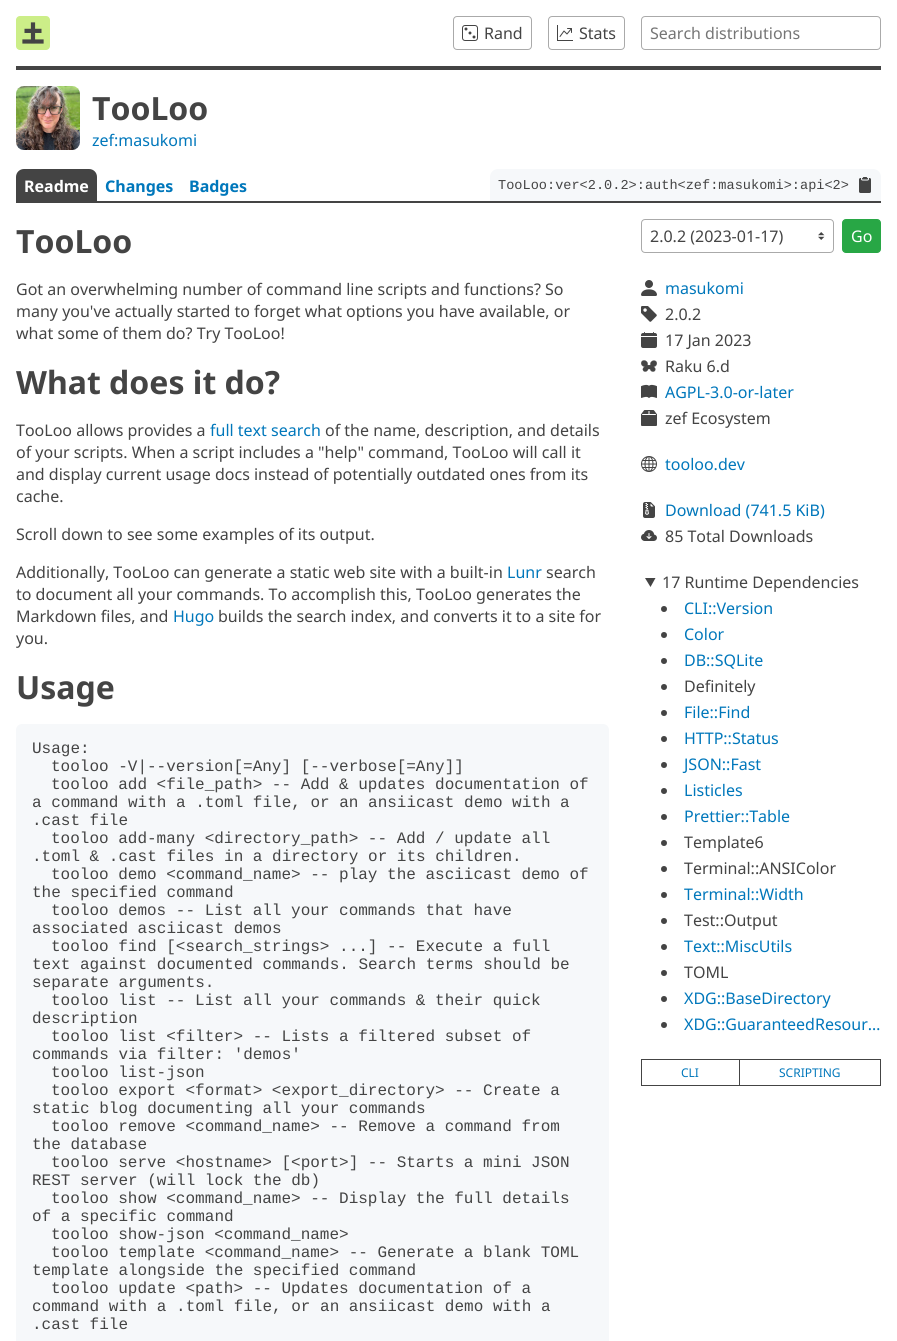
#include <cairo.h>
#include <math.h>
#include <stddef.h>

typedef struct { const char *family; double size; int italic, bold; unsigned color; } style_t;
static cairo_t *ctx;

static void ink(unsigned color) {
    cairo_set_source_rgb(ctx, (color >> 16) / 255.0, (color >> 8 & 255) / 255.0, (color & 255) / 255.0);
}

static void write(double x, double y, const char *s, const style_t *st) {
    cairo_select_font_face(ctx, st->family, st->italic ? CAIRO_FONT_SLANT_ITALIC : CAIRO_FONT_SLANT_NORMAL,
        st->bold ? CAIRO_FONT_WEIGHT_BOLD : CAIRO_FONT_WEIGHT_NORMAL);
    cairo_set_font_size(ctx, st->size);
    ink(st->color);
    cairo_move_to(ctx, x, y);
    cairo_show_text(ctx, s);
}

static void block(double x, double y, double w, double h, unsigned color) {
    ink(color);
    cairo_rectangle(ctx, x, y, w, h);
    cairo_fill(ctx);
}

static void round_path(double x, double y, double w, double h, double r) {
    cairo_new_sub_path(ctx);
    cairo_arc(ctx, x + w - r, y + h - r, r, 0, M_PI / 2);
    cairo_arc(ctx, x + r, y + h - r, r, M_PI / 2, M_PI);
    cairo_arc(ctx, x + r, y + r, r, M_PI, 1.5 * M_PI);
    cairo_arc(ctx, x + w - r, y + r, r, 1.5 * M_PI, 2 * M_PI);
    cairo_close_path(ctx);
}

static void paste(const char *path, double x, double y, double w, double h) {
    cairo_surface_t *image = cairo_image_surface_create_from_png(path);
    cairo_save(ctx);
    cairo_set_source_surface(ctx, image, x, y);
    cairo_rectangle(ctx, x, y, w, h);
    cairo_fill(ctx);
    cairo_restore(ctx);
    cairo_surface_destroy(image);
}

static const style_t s1 = {"Noto Sans", 16, 0, 0, 0x444444};
static const style_t s2 = {"Noto Sans", 16, 0, 0, 0x757575};
static const style_t s3 = {"Noto Sans", 32, 0, 1, 0x444444};
static const style_t s4 = {"Noto Sans", 16, 0, 0, 0x0077bb};
static const style_t s5 = {"Noto Sans", 16, 0, 1, 0xffffff};
static const style_t s6 = {"Noto Sans", 16, 0, 1, 0x0077bb};
static const style_t s7 = {"Liberation Mono", 13.6, 0, 0, 0x444444};
static const style_t s8 = {"Liberation Mono", 16, 0, 0, 0x444444};
static const style_t s9 = {"Noto Sans", 16, 0, 0, 0xffffff};
static const style_t s10 = {"Noto Sans", 12, 0, 0, 0x0077bb};

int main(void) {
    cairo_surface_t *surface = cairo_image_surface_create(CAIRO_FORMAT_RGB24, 897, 1341);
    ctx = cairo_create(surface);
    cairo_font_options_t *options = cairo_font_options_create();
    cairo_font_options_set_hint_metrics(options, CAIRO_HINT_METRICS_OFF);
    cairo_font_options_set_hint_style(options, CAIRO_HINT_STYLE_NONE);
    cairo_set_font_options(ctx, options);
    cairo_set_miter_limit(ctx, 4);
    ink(0xffffff);
    cairo_paint(ctx);
    block(16, 66, 865, 4, 0x444444);
    paste("pic1.png", 16, 16, 34, 34);
    round_path(453.5, 16.5, 78, 33, 3.5);
    ink(0xaaaaaa);
    cairo_set_line_width(ctx, 1);
    cairo_stroke(ctx);
    paste("pic2.png", 462, 25, 16, 16);
    write(484, 39, "Rand", &s1);
    round_path(548.5, 16.5, 76, 33, 3.5);
    ink(0xaaaaaa);
    cairo_stroke(ctx);
    paste("pic3.png", 557, 25, 16, 16);
    write(579, 39, "Stats", &s1);
    round_path(641.5, 16.5, 239, 33, 3.5);
    ink(0xaaaaaa);
    cairo_stroke(ctx);
    write(650, 39, "Search distributions", &s2);
    paste("pic4.png", 16, 86, 64, 64);
    write(92, 120, "TooLoo", &s3);
    write(92, 146, "zef:masukomi", &s4);
    block(16, 201, 865, 2, 0x444444);
    cairo_new_path(ctx);
    cairo_move_to(ctx, 24, 169);
    cairo_line_to(ctx, 89, 169);
    cairo_curve_to(ctx, 93.5, 169, 97, 172.5, 97, 177);
    cairo_line_to(ctx, 97, 201);
    cairo_line_to(ctx, 16, 201);
    cairo_line_to(ctx, 16, 177);
    cairo_curve_to(ctx, 16, 172.5, 19.5, 169, 24, 169);
    cairo_close_path(ctx);
    cairo_fill(ctx);
    write(24, 192, "Readme", &s5);
    write(105, 192, "Changes", &s6);
    write(189, 192, "Badges", &s6);
    ink(0xf6f8fa);
    cairo_new_path(ctx);
    cairo_move_to(ctx, 498, 169);
    cairo_line_to(ctx, 873, 169);
    cairo_curve_to(ctx, 877.5, 169, 881, 172.5, 881, 177);
    cairo_line_to(ctx, 881, 201);
    cairo_line_to(ctx, 490, 201);
    cairo_line_to(ctx, 490, 177);
    cairo_curve_to(ctx, 490, 172.5, 493.5, 169, 498, 169);
    cairo_close_path(ctx);
    cairo_fill(ctx);
    write(498, 189, "TooLoo:ver<2.0.2>:auth<zef:masukomi>:api<2>", &s7);
    paste("pic5.png", 859, 177, 12, 16);
    write(16, 253, "TooLoo", &s3);
    write(16, 295, "Got an overwhelming number of command line scripts and functions? So", &s1);
    write(16, 317, "many you've actually started to forget what options you have available, or", &s1);
    write(16, 339, "what some of them do? Try TooLoo!", &s1);
    write(16, 394, "What does it do?", &s3);
    write(16, 436, "TooLoo allows provides a", &s1);
    write(210, 436, "full text search", &s4);
    write(325, 436, "of the name, description, and details", &s1);
    write(16, 458, "of your scripts. When a script includes a \"help\" command, TooLoo will call it", &s1);
    write(16, 480, "and display current usage docs instead of potentially outdated ones from its", &s1);
    write(16, 502, "cache.", &s1);
    write(16, 540, "Scroll down to see some examples of its output.", &s1);
    write(16, 578, "Additionally, TooLoo can generate a static web site with a built-in", &s1);
    write(507, 578, "Lunr", &s4);
    write(546, 578, "search", &s1);
    write(16, 600, "to document all your commands. To accomplish this, TooLoo generates the", &s1);
    write(16, 622, "Markdown files, and", &s1);
    write(173, 622, "Hugo", &s4);
    write(218, 622, "builds the search index, and converts it to a site for", &s1);
    write(16, 644, "you.", &s1);
    write(16, 699, "Usage", &s3);
    ink(0xf6f8fa);
    round_path(16, 724, 593, 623, 6);
    cairo_fill(ctx);
    write(32, 753, "Usage:", &s8);
    write(51, 771, "tooloo -V|--version[=Any] [--verbose[=Any]]", &s8);
    write(51, 789, "tooloo add <file_path> -- Add & updates documentation of", &s8);
    write(32, 807, "a command with a .toml file, or an ansiicast demo with a", &s8);
    write(32, 825, ".cast file", &s8);
    write(51, 843, "tooloo add-many <directory_path> -- Add / update all", &s8);
    write(32, 861, ".toml & .cast files in a directory or its children.", &s8);
    write(51, 879, "tooloo demo <command_name> -- play the asciicast demo of", &s8);
    write(32, 897, "the specified command", &s8);
    write(51, 915, "tooloo demos -- List all your commands that have", &s8);
    write(32, 933, "associated asciicast demos", &s8);
    write(51, 951, "tooloo find [<search_strings> ...] -- Execute a full", &s8);
    write(32, 969, "text against documented commands. Search terms should be", &s8);
    write(32, 987, "separate arguments.", &s8);
    write(51, 1005, "tooloo list -- List all your commands & their quick", &s8);
    write(32, 1023, "description", &s8);
    write(51, 1041, "tooloo list <filter> -- Lists a filtered subset of", &s8);
    write(32, 1059, "commands via filter: 'demos'", &s8);
    write(51, 1077, "tooloo list-json", &s8);
    write(51, 1095, "tooloo export <format> <export_directory> -- Create a", &s8);
    write(32, 1113, "static blog documenting all your commands", &s8);
    write(51, 1131, "tooloo remove <command_name> -- Remove a command from", &s8);
    write(32, 1149, "the database", &s8);
    write(51, 1167, "tooloo serve <hostname> [<port>] -- Starts a mini JSON", &s8);
    write(32, 1185, "REST server (will lock the db)", &s8);
    write(51, 1203, "tooloo show <command_name> -- Display the full details", &s8);
    write(32, 1221, "of a specific command", &s8);
    write(51, 1239, "tooloo show-json <command_name>", &s8);
    write(51, 1257, "tooloo template <command_name> -- Generate a blank TOML", &s8);
    write(32, 1275, "template alongside the specified command", &s8);
    write(51, 1293, "tooloo update <path> -- Updates documentation of a", &s8);
    write(32, 1311, "command with a .toml file, or an ansiicast demo with a", &s8);
    write(32, 1329, ".cast file", &s8);
    paste("pic6.png", 818, 232, 7, 8);
    round_path(641.5, 219.5, 192, 33, 3.5);
    ink(0xaaaaaa);
    cairo_stroke(ctx);
    write(650, 242, "2.0.2 (2023-01-17)", &s1);
    ink(0x28a745);
    round_path(842.5, 219.5, 38, 33, 3.5);
    cairo_fill_preserve(ctx);
    cairo_stroke(ctx);
    write(851, 242, "Go", &s9);
    paste("pic7.png", 641, 280, 16, 16);
    write(665, 294, "masukomi", &s4);
    paste("pic8.png", 641, 306, 16, 16);
    write(665, 320, "2.0.2", &s1);
    paste("pic9.png", 641, 332, 16, 16);
    write(665, 346, "17 Jan 2023", &s1);
    paste("pic10.png", 641, 360, 16, 12);
    write(665, 372, "Raku 6.d", &s1);
    paste("pic11.png", 641, 384, 16, 14);
    write(665, 398, "AGPL-3.0-or-later", &s4);
    paste("pic12.png", 641, 410, 16, 16);
    write(665, 424, "zef Ecosystem", &s1);
    paste("pic13.png", 641, 456, 16, 16);
    write(665, 470, "tooloo.dev", &s4);
    paste("pic14.png", 643, 502, 12, 16);
    write(665, 516, "Download (741.5 KiB)", &s4);
    paste("pic15.png", 641, 530, 16, 11);
    write(665, 542, "85 Total Downloads", &s1);
    cairo_new_path(ctx);
    cairo_move_to(ctx, 645, 578);
    cairo_line_to(ctx, 655.5, 578);
    cairo_line_to(ctx, 650.5, 587);
    cairo_close_path(ctx);
    cairo_fill(ctx);
    write(662, 588, "17 Runtime Dependencies", &s1);
    cairo_new_path(ctx);
    cairo_arc(ctx, 664, 609, 3, 0, 2 * M_PI);
    cairo_fill(ctx);
    write(684, 614, "CLI::Version", &s4);
    ink(0x444444);
    cairo_new_path(ctx);
    cairo_arc(ctx, 664, 635, 3, 0, 2 * M_PI);
    cairo_fill(ctx);
    write(684, 640, "Color", &s4);
    ink(0x444444);
    cairo_new_path(ctx);
    cairo_arc(ctx, 664, 661, 3, 0, 2 * M_PI);
    cairo_fill(ctx);
    write(684, 666, "DB::SQLite", &s4);
    ink(0x444444);
    cairo_new_path(ctx);
    cairo_arc(ctx, 664, 687, 3, 0, 2 * M_PI);
    cairo_fill(ctx);
    write(684, 692, "Definitely", &s1);
    cairo_new_path(ctx);
    cairo_arc(ctx, 664, 713, 3, 0, 2 * M_PI);
    cairo_fill(ctx);
    write(684, 718, "File::Find", &s4);
    ink(0x444444);
    cairo_new_path(ctx);
    cairo_arc(ctx, 664, 739, 3, 0, 2 * M_PI);
    cairo_fill(ctx);
    write(684, 744, "HTTP::Status", &s4);
    ink(0x444444);
    cairo_new_path(ctx);
    cairo_arc(ctx, 664, 765, 3, 0, 2 * M_PI);
    cairo_fill(ctx);
    write(684, 770, "JSON::Fast", &s4);
    ink(0x444444);
    cairo_new_path(ctx);
    cairo_arc(ctx, 664, 791, 3, 0, 2 * M_PI);
    cairo_fill(ctx);
    write(684, 796, "Listicles", &s4);
    ink(0x444444);
    cairo_new_path(ctx);
    cairo_arc(ctx, 664, 817, 3, 0, 2 * M_PI);
    cairo_fill(ctx);
    write(684, 822, "Prettier::Table", &s4);
    ink(0x444444);
    cairo_new_path(ctx);
    cairo_arc(ctx, 664, 843, 3, 0, 2 * M_PI);
    cairo_fill(ctx);
    write(684, 848, "Template6", &s1);
    cairo_new_path(ctx);
    cairo_arc(ctx, 664, 869, 3, 0, 2 * M_PI);
    cairo_fill(ctx);
    write(684, 874, "Terminal::ANSIColor", &s1);
    cairo_new_path(ctx);
    cairo_arc(ctx, 664, 895, 3, 0, 2 * M_PI);
    cairo_fill(ctx);
    write(684, 900, "Terminal::Width", &s4);
    ink(0x444444);
    cairo_new_path(ctx);
    cairo_arc(ctx, 664, 921, 3, 0, 2 * M_PI);
    cairo_fill(ctx);
    write(684, 926, "Test::Output", &s1);
    cairo_new_path(ctx);
    cairo_arc(ctx, 664, 947, 3, 0, 2 * M_PI);
    cairo_fill(ctx);
    write(684, 952, "Text::MiscUtils", &s4);
    ink(0x444444);
    cairo_new_path(ctx);
    cairo_arc(ctx, 664, 973, 3, 0, 2 * M_PI);
    cairo_fill(ctx);
    write(684, 978, "TOML", &s1);
    cairo_new_path(ctx);
    cairo_arc(ctx, 664, 999, 3, 0, 2 * M_PI);
    cairo_fill(ctx);
    write(684, 1004, "XDG::BaseDirectory", &s4);
    ink(0x444444);
    cairo_new_path(ctx);
    cairo_arc(ctx, 664, 1025, 3, 0, 2 * M_PI);
    cairo_fill(ctx);
    write(684, 1030, "XDG::GuaranteedResour…", &s4);
    block(641, 1059, 240, 1, 0x444444);
    block(641, 1059, 1, 27, 0x444444);
    block(739, 1060, 1, 26, 0x444444);
    block(642, 1085, 98, 1, 0x444444);
    write(681, 1077, "CLI", &s10);
    block(880, 1060, 1, 26, 0x444444);
    block(740, 1085, 141, 1, 0x444444);
    write(779, 1077, "SCRIPTING", &s10);
    cairo_surface_write_to_png(surface, "screenshot.png");
    cairo_font_options_destroy(options);
    cairo_destroy(ctx);
    cairo_surface_destroy(surface);
    return 0;
}
